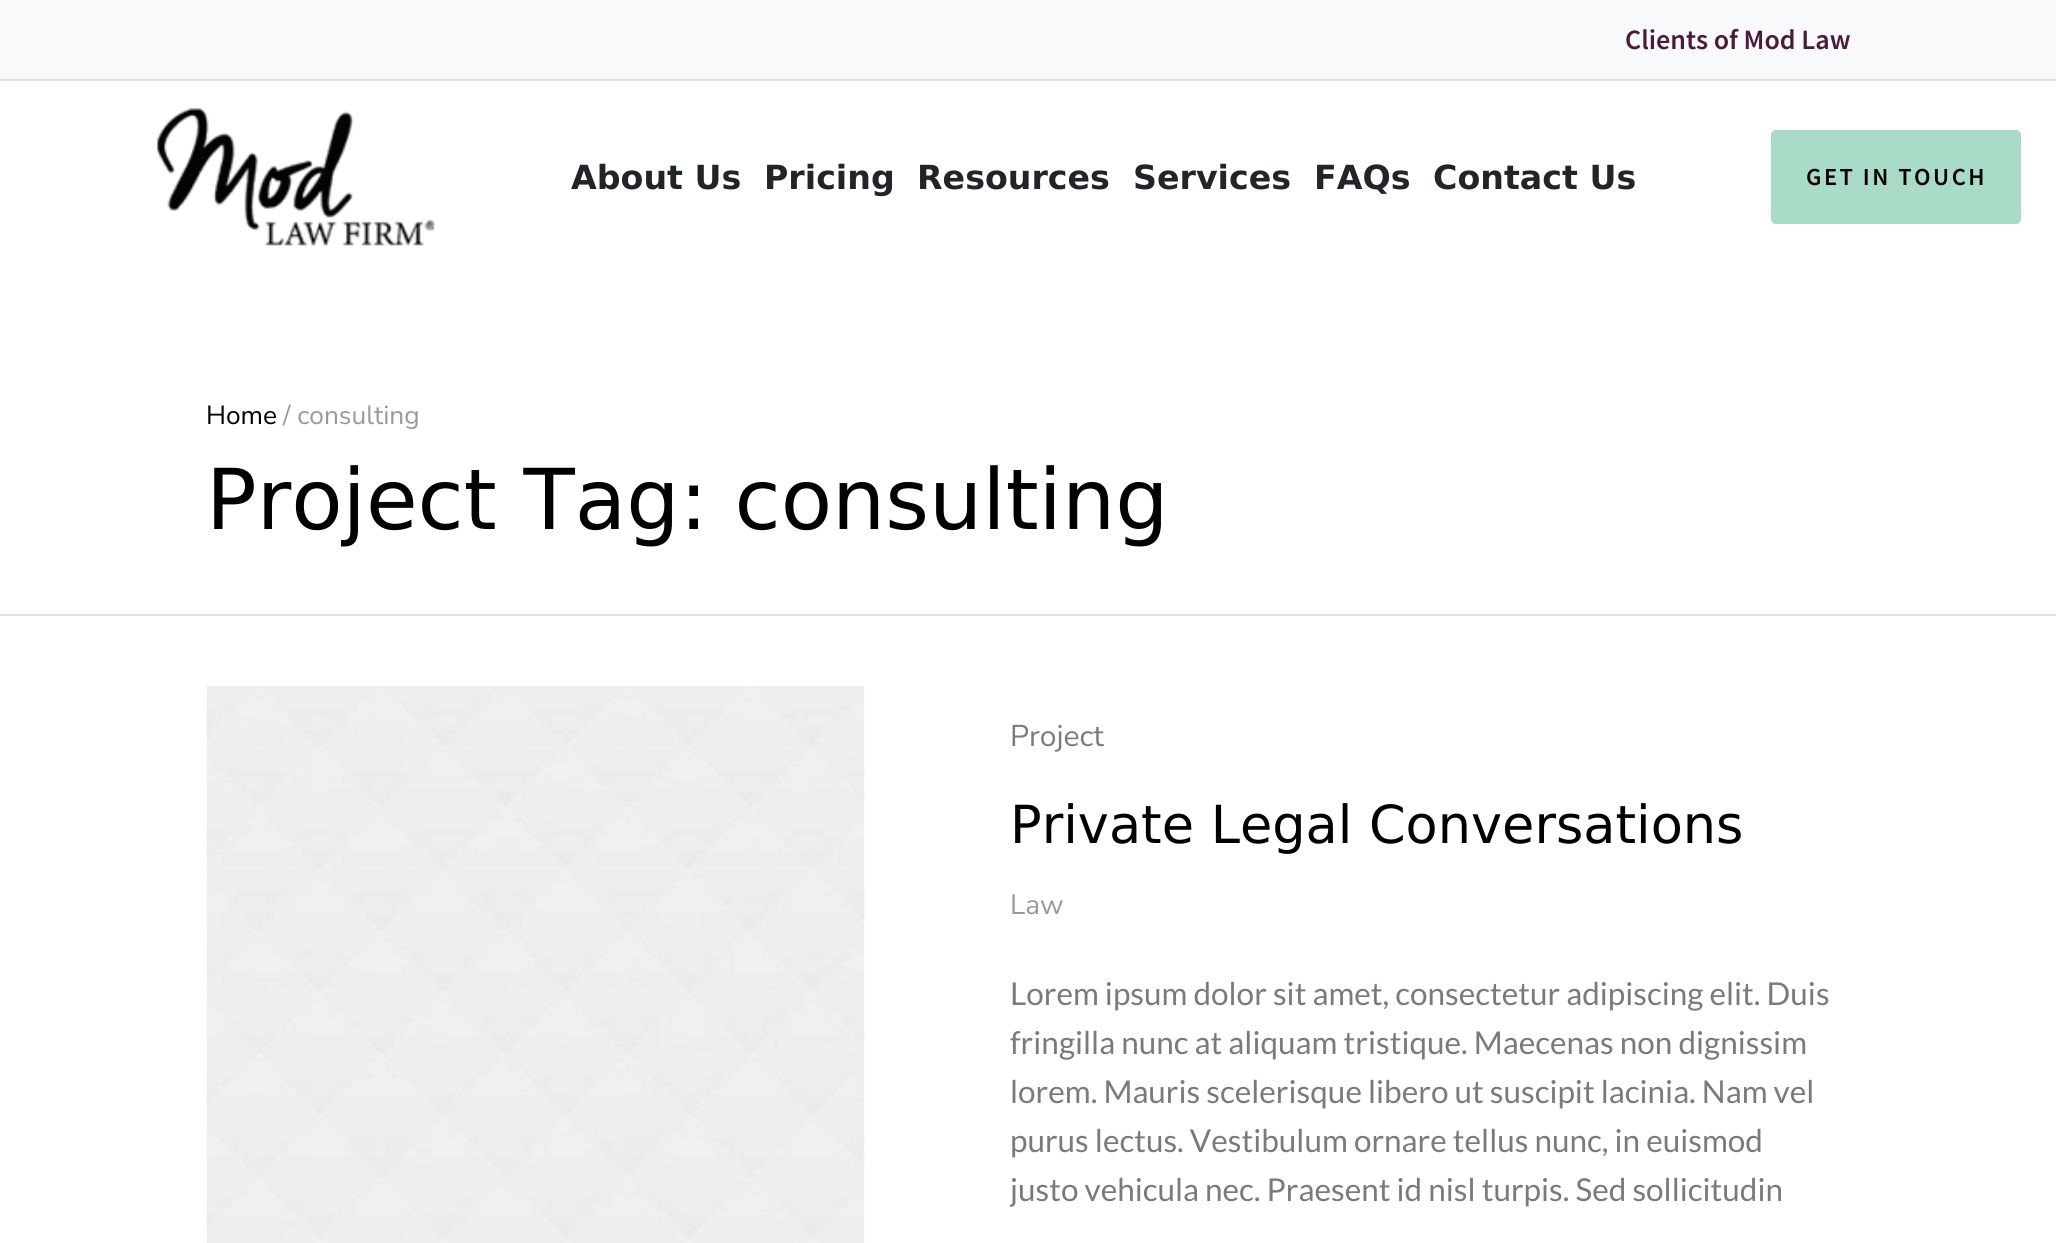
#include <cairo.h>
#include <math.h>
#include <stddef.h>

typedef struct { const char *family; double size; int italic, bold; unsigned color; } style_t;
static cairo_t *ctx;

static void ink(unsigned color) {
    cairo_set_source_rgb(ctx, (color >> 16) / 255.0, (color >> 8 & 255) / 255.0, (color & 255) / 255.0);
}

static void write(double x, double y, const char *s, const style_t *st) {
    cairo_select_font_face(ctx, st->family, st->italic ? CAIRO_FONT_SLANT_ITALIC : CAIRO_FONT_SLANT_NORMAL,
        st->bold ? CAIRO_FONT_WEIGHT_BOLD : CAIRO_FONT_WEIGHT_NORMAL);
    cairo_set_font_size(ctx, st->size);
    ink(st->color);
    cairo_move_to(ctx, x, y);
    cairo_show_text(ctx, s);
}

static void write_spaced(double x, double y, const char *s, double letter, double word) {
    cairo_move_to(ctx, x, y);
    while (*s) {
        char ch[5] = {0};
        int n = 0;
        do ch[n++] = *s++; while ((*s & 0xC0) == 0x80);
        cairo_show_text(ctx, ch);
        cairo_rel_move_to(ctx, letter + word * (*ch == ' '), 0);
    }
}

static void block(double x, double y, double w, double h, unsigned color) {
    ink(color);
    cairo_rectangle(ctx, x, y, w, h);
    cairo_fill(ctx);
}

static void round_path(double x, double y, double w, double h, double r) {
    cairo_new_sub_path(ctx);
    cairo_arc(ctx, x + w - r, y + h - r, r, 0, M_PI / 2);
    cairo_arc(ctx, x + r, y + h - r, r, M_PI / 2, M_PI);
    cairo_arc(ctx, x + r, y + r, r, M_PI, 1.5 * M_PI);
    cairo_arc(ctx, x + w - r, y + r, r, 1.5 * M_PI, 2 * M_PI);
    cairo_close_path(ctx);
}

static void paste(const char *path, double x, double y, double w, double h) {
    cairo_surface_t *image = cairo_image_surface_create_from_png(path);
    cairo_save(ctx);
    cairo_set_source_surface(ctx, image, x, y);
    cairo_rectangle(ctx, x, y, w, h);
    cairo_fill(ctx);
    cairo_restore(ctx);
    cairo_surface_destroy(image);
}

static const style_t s1 = {"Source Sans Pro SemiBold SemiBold", 28, 0, 0, 0x4c1a3a};
static const style_t s2 = {"DejaVu Sans", 33.25, 0, 1, 0x212529};
static const style_t s3 = {"Nunito Sans", 26.25, 0, 0, 0x000000};
static const style_t s4 = {"Nunito Sans", 26.25, 0, 0, 0x999999};
static const style_t s5 = {"DejaVu Sans", 84, 0, 0, 0x000000};
static const style_t s6 = {"Nunito Sans", 30, 0, 0, 0x7a7a7a};
static const style_t s7 = {"DejaVu Sans", 52.5, 0, 0, 0x000000};
static const style_t s8 = {"Nunito Sans", 28, 0, 0, 0x999999};
static const style_t s9 = {"Lato", 31.5, 0, 0, 0x7a7a7a};

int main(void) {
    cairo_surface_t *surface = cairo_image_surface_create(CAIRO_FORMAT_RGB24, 2056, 1243);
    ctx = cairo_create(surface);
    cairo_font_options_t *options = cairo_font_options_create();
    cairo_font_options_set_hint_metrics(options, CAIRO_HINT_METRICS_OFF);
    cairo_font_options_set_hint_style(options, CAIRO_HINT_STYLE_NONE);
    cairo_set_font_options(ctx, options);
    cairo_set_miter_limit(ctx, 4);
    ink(0xffffff);
    cairo_paint(ctx);
    block(0, 0, 2056, 79, 0xf8f9fb);
    block(0, 79, 2056, 2, 0xe1e1e1);
    write(1625, 49, "Clients of Mod Law", &s1);
    paste("pic1.png", 157, 108, 278, 138);
    write(571, 189, "About Us", &s2);
    write(764, 189, "Pricing", &s2);
    write(917, 189, "Resources", &s2);
    write(1133, 189, "Services", &s2);
    write(1314, 189, "FAQs", &s2);
    write(1433, 189, "Contact Us", &s2);
    ink(0xa8dcc7);
    round_path(1771, 130, 250, 94, 5);
    cairo_fill(ctx);
    cairo_select_font_face(ctx, "Source Sans Pro SemiBold SemiBold", CAIRO_FONT_SLANT_NORMAL, CAIRO_FONT_WEIGHT_NORMAL);
    cairo_set_font_size(ctx, 24.5);
    ink(0x000000);
    write_spaced(1806, 185, "GET IN TOUCH", 2.5, 0);
    block(0, 614, 2056, 2, 0xe1e1e1);
    write(206, 424, "Home", &s3);
    write(283, 424, "/ consulting", &s4);
    write(206, 529, "Project Tag: consulting", &s5);
    paste("pic2.png", 206, 686, 659, 557);
    write(1010, 746, "Project", &s6);
    write(1010, 843, "Private Legal Conversations", &s7);
    write(1010, 914, "Law", &s8);
    write(1010, 1005, "Lorem ipsum dolor sit amet, consectetur adipiscing elit. Duis", &s9);
    write(1010, 1054, "fringilla nunc at aliquam tristique. Maecenas non dignissim", &s9);
    write(1010, 1103, "lorem. Mauris scelerisque libero ut suscipit lacinia. Nam vel", &s9);
    write(1010, 1152, "purus lectus. Vestibulum ornare tellus nunc, in euismod", &s9);
    cairo_save(ctx);
    cairo_rectangle(ctx, 1010, 970, 822, 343);
    cairo_clip(ctx);
    write(1010, 1201, "justo vehicula nec. Praesent id nisl turpis. Sed sollicitudin", &s9);
    cairo_restore(ctx);
    cairo_surface_write_to_png(surface, "screenshot.png");
    cairo_font_options_destroy(options);
    cairo_destroy(ctx);
    cairo_surface_destroy(surface);
    return 0;
}
